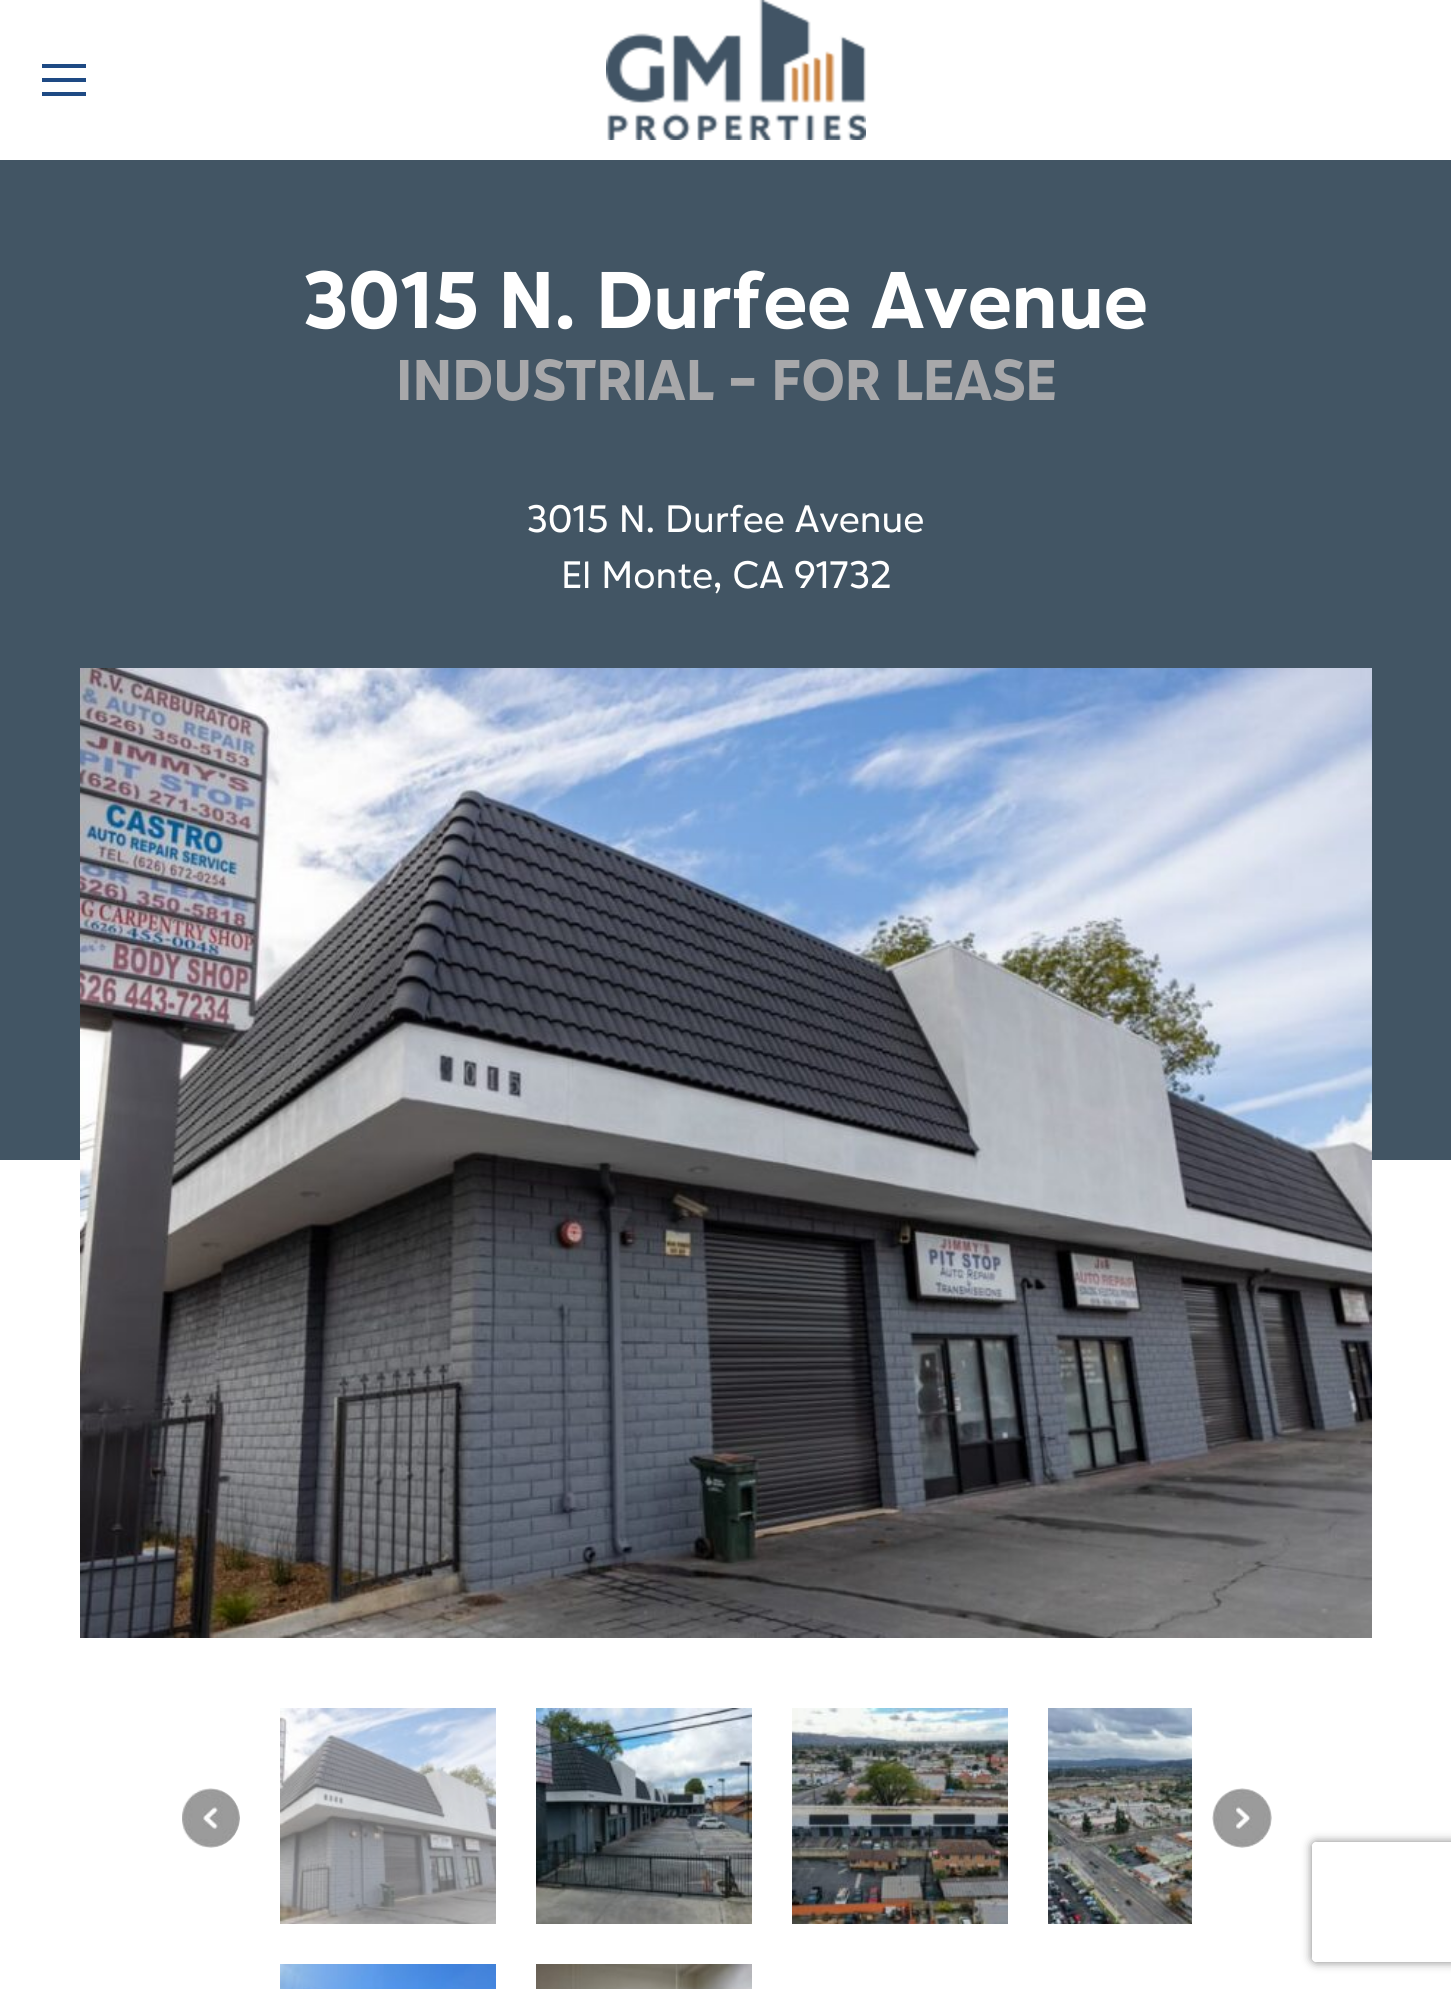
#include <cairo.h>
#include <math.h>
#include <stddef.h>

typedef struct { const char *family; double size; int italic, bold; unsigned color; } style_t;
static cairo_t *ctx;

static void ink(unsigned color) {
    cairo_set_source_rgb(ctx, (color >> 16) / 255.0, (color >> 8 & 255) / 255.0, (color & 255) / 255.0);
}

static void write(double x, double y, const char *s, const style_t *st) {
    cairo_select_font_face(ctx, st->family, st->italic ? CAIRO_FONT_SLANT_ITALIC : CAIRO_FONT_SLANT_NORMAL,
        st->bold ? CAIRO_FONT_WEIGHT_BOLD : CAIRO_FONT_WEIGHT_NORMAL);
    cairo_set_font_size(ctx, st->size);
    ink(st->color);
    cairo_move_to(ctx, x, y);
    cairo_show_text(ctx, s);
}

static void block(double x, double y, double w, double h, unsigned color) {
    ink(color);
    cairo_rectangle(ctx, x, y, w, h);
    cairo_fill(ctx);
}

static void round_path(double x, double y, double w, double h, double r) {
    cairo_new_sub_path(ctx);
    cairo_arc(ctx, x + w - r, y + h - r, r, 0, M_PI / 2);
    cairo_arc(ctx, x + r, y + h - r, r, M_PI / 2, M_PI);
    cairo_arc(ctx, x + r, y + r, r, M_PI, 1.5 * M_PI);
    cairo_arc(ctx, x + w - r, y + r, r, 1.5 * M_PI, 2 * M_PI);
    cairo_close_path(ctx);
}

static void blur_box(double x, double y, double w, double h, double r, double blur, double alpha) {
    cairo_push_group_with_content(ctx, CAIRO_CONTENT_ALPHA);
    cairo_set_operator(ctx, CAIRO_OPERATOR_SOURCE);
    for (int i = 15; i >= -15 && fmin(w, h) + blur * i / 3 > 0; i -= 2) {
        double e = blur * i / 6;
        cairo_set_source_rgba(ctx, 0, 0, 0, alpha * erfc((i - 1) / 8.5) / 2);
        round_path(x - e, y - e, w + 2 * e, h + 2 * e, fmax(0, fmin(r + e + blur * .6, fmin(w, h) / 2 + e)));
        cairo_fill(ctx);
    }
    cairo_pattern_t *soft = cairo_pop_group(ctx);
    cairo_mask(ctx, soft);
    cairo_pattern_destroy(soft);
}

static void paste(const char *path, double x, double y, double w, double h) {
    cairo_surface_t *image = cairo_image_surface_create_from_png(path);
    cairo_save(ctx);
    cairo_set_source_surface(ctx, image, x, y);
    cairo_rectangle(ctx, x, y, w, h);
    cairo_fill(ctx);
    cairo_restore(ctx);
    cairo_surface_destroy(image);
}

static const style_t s1 = {"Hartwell", 84, 0, 1, 0xffffff};
static const style_t s2 = {"Hartwell", 60, 0, 1, 0xa8a8aa};
static const style_t s3 = {"Hartwell Medium", 40, 0, 0, 0xffffff};

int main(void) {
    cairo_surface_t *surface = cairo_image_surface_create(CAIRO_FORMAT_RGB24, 1451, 1989);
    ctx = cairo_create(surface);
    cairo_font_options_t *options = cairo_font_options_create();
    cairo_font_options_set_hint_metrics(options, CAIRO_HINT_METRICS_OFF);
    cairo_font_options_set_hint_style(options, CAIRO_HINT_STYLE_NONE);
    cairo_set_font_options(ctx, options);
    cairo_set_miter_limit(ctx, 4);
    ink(0xffffff);
    cairo_paint(ctx);
    block(42, 64, 44, 4, 0x1e4a84);
    block(42, 78, 44, 4, 0x1e4a84);
    block(42, 92, 44, 4, 0x1e4a84);
    paste("pic1.png", 606, 0, 260, 140);
    block(0, 160, 1451, 1000, 0x425564);
    write(304, 328, "3015 N. Durfee Avenue", &s1);
    write(396, 400, "INDUSTRIAL - FOR LEASE", &s2);
    write(527, 532, "3015 N. Durfee Avenue", &s3);
    write(561, 588, "El Monte, CA 91732", &s3);
    paste("pic2.png", 80, 668, 1292, 970);
    paste("pic3.png", 182, 1788, 58, 60);
    paste("pic4.png", 1212, 1788, 60, 60);
    paste("pic5.png", 280, 1708, 216, 216);
    paste("pic6.png", 536, 1708, 216, 216);
    paste("pic7.png", 792, 1708, 216, 216);
    paste("pic8.png", 1048, 1708, 144, 216);
    paste("pic9.png", 280, 1964, 216, 25);
    paste("pic10.png", 536, 1964, 216, 25);
    cairo_save(ctx);
    cairo_set_fill_rule(ctx, CAIRO_FILL_RULE_EVEN_ODD);
    cairo_new_path(ctx);
    cairo_move_to(ctx, 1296, 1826);
    cairo_line_to(ctx, 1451, 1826);
    cairo_line_to(ctx, 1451, 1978);
    cairo_line_to(ctx, 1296, 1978);
    cairo_close_path(ctx);
    cairo_move_to(ctx, 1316, 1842);
    cairo_line_to(ctx, 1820, 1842);
    cairo_curve_to(ctx, 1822, 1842, 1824, 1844, 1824, 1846);
    cairo_line_to(ctx, 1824, 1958);
    cairo_curve_to(ctx, 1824, 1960, 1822, 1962, 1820, 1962);
    cairo_line_to(ctx, 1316, 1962);
    cairo_curve_to(ctx, 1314, 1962, 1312, 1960, 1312, 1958);
    cairo_line_to(ctx, 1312, 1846);
    cairo_curve_to(ctx, 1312, 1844, 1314, 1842, 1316, 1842);
    cairo_close_path(ctx);
    cairo_clip(ctx);
    ink(0x808080);
    blur_box(1312, 1842, 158, 120, 4, 5, 1);
    cairo_restore(ctx);
    cairo_surface_write_to_png(surface, "screenshot.png");
    cairo_font_options_destroy(options);
    cairo_destroy(ctx);
    cairo_surface_destroy(surface);
    return 0;
}
